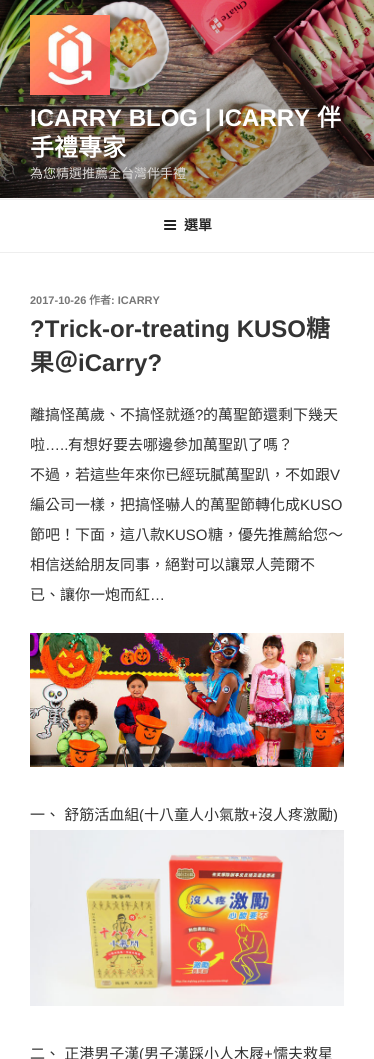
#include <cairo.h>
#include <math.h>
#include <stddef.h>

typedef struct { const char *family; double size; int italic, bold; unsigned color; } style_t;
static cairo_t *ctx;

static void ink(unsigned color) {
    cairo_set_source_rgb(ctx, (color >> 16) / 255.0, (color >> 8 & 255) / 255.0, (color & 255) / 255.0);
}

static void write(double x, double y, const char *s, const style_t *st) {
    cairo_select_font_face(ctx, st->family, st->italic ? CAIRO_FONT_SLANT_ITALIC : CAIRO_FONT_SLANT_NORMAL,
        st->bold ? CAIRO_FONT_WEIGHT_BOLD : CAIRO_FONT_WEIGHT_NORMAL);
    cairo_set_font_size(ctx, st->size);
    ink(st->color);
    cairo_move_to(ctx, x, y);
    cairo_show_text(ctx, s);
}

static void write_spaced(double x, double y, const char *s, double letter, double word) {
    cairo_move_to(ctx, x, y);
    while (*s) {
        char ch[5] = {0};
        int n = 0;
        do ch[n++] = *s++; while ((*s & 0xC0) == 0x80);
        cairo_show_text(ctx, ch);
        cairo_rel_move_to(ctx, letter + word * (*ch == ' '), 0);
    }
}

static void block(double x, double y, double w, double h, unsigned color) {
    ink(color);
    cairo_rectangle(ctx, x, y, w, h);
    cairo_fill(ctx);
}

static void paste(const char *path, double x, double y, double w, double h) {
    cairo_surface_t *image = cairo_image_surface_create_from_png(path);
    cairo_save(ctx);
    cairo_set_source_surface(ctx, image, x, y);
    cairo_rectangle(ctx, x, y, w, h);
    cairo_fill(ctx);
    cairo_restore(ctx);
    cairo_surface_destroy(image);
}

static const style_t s1 = {"Liberation Sans", 24, 0, 1, 0xffffff};
static const style_t s2 = {"Noto Sans CJK TC", 24, 0, 1, 0xffffff};
static const style_t s3 = {"Noto Sans CJK TC", 13, 0, 0, 0xdcdad8};
static const style_t s4 = {"Noto Sans CJK TC", 14, 0, 1, 0x222222};
static const style_t s5 = {"Liberation Sans", 11, 0, 1, 0x767676};
static const style_t s6 = {"Noto Sans CJK TC", 11, 0, 1, 0x767676};
static const style_t s7 = {"Liberation Sans", 24, 0, 1, 0x333333};
static const style_t s8 = {"Noto Sans CJK TC", 24, 0, 1, 0x333333};
static const style_t s9 = {"Noto Sans CJK TC", 15, 0, 0, 0x333333};
static const style_t s10 = {"Liberation Sans", 15, 0, 0, 0x333333};

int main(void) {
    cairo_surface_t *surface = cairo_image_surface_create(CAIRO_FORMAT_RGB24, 374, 1059);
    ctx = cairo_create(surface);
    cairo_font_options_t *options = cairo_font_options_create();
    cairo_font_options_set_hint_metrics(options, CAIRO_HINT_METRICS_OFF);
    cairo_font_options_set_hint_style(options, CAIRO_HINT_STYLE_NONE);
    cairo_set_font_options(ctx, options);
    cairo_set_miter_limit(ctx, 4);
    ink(0xffffff);
    cairo_paint(ctx);
    block(0, 198, 374, 1, 0xfafafa);
    paste("pic1.png", 0, 0, 374, 198);
    paste("pic2.png", 30, 15, 80, 80);
    write(30, 126, "ICARRY BLOG | ICARRY", &s1);
    write(317, 126, "伴", &s2);
    write(30, 156, "手禮專家", &s2);
    write(30, 178, "為您精選推薦全台灣伴手禮", &s3);
    block(0, 199, 374, 1, 0xeeeeee);
    block(0, 252, 374, 1, 0xeeeeee);
    paste("pic3.png", 164, 220, 13, 10);
    write(184, 230, "選單", &s4);
    write(30, 304, "2017-10-26", &s5);
    write(89, 304, "作者", &s6);
    write(111, 304, ": ICARRY", &s5);
    write(30, 337, "?Trick-or-treating KUSO", &s7);
    write(306, 337, "糖", &s8);
    write(30, 371, "果＠", &s8);
    write(78, 371, "iCarry?", &s7);
    write(30, 420, "離搞怪萬歲、不搞怪就遜", &s9);
    write(195, 420, "?", &s10);
    write(203, 420, "的萬聖節還剩下幾天", &s9);
    write(30, 450, "啦", &s9);
    write(45, 450, "…..", &s10);
    write(68, 450, "有想好要去哪邊參加萬聖趴了嗎？", &s9);
    write(30, 480, "不過，若這些年來你已經玩膩萬聖趴，不如跟", &s9);
    write(330, 480, "V", &s10);
    write(30, 510, "編公司一樣，把搞怪嚇人的萬聖節轉化成", &s9);
    write(300, 510, "KUSO", &s10);
    write(30, 540, "節吧！下面，這八款", &s9);
    write(165, 540, "KUSO", &s10);
    write(208, 540, "糖，優先推薦給您～", &s9);
    write(30, 570, "相信送給朋友同事，絕對可以讓眾人莞爾不", &s9);
    write(30, 600, "已、讓你一炮而紅", &s9);
    write(150, 600, "…", &s10);
    paste("pic4.png", 30, 633, 314, 134);
    cairo_select_font_face(ctx, "Noto Sans CJK TC", CAIRO_FONT_SLANT_NORMAL, CAIRO_FONT_WEIGHT_NORMAL);
    write_spaced(30, 820, "一、 舒筋活血組", 0, 1);
    write(139, 820, "(", &s10);
    write(144, 820, "十八童人小氣散", &s9);
    write(249, 820, "+", &s10);
    write(258, 820, "沒人疼激勵", &s9);
    write(333, 820, ")", &s10);
    cairo_rectangle(ctx, 26, 826, 322, 184);
    ink(0xffffff);
    cairo_set_line_width(ctx, 8);
    cairo_stroke(ctx);
    paste("pic5.png", 30, 830, 314, 176);
    cairo_select_font_face(ctx, "Noto Sans CJK TC", CAIRO_FONT_SLANT_NORMAL, CAIRO_FONT_WEIGHT_NORMAL);
    ink(0x333333);
    write_spaced(30, 1059, "二、 正港男子漢", 0, 1);
    write(139, 1059, "(", &s10);
    write(144, 1059, "男子漢踩小人木屐", &s9);
    write(264, 1059, "+", &s10);
    write(273, 1059, "懦夫救星", &s9);
    cairo_surface_write_to_png(surface, "screenshot.png");
    cairo_font_options_destroy(options);
    cairo_destroy(ctx);
    cairo_surface_destroy(surface);
    return 0;
}
